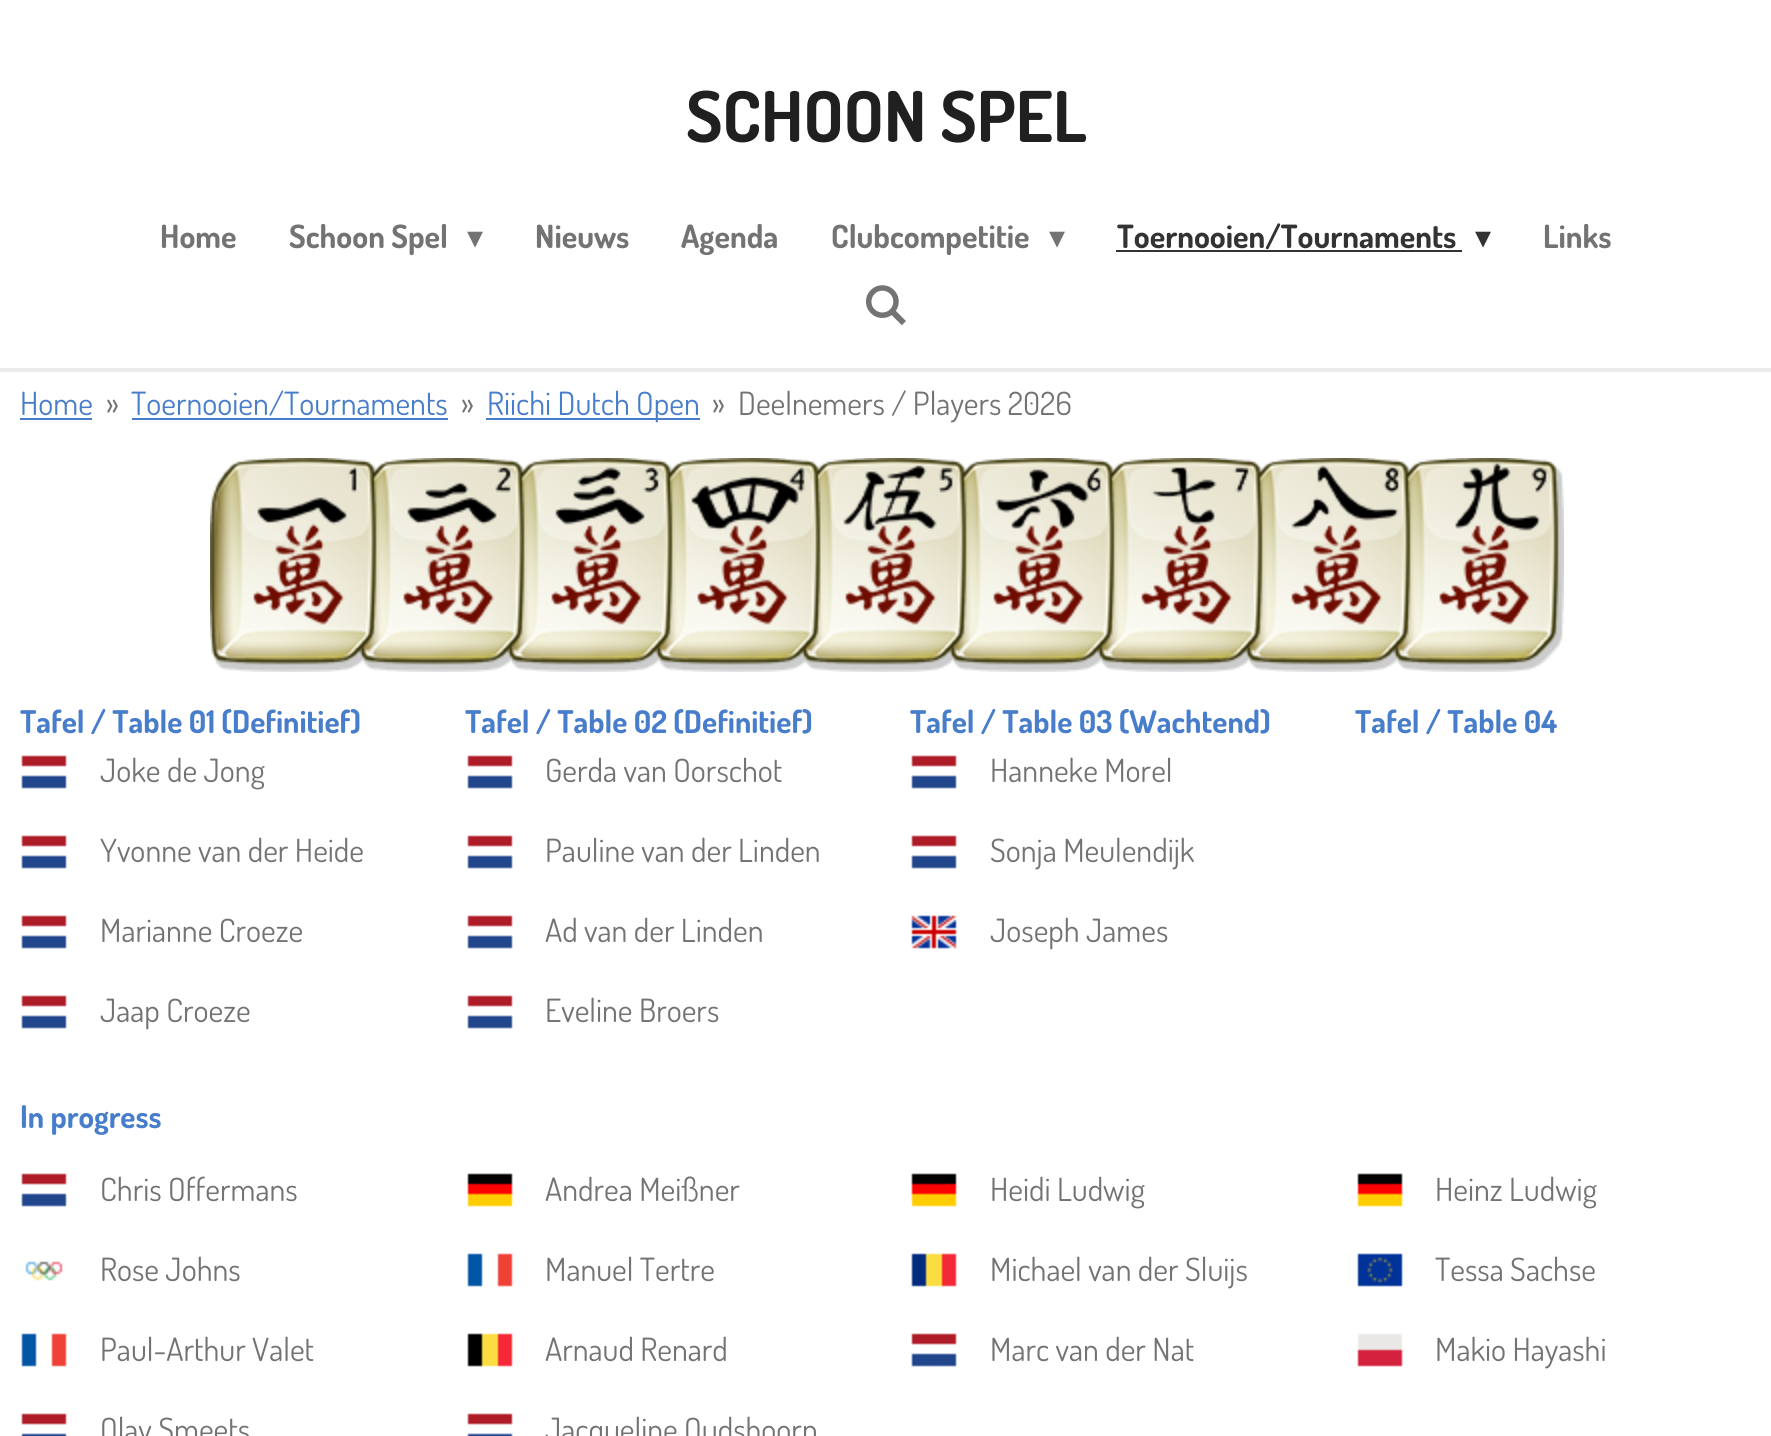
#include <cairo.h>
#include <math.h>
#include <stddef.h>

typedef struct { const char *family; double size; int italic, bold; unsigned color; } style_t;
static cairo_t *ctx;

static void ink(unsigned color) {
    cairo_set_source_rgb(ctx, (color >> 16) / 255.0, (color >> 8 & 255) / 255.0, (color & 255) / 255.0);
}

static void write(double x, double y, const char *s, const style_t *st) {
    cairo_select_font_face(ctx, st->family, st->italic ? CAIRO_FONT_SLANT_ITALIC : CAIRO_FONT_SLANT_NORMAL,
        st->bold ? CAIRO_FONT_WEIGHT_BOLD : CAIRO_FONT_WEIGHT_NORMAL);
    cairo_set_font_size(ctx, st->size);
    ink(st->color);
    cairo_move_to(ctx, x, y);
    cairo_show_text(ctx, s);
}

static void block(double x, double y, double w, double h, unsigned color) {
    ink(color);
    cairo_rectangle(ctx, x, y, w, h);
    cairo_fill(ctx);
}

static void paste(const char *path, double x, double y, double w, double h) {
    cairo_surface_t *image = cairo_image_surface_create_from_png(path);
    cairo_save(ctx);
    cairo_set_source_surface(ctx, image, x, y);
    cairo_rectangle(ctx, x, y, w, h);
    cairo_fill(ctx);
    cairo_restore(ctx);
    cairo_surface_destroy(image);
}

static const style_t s1 = {"Dosis", 70, 0, 1, 0x202020};
static const style_t s2 = {"Dosis", 32, 0, 1, 0x737373};
static const style_t s3 = {"DejaVu Sans", 32, 0, 0, 0x737373};
static const style_t s4 = {"Dosis", 32, 0, 1, 0x333333};
static const style_t s5 = {"DejaVu Sans", 32, 0, 0, 0x333333};
static const style_t s6 = {"Dosis", 32, 0, 0, 0x477dca};
static const style_t s7 = {"Dosis", 32, 0, 0, 0x737373};
static const style_t s8 = {"Dosis", 31.25, 0, 1, 0x477dca};

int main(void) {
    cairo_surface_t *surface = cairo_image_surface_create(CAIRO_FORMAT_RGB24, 1771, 1436);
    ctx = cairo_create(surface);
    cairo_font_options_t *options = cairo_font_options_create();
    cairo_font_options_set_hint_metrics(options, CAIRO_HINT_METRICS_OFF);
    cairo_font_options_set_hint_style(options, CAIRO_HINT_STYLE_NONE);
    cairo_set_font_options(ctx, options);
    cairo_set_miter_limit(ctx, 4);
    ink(0xffffff);
    cairo_paint(ctx);
    write(686, 142, "SCHOON SPEL", &s1);
    write(160, 248, "Home", &s2);
    write(289, 248, "Schoon Spel", &s2);
    write(467, 248, "▾", &s3);
    write(535, 248, "Nieuws", &s2);
    write(681, 248, "Agenda", &s2);
    write(831, 248, "Clubcompetitie", &s2);
    write(1049, 248, "▾", &s3);
    write(1117, 248, "Toernooien/Tournaments", &s4);
    block(1116, 250, 346, 2, 0x333333);
    write(1475, 248, "▾", &s5);
    write(1543, 248, "Links", &s2);
    paste("pic1.png", 866, 285, 40, 41);
    block(0, 368, 1771, 4, 0xeaeaea);
    write(20, 415, "Home", &s6);
    block(20, 418, 72, 2, 0x477dca);
    write(106, 415, "»", &s7);
    write(131, 415, "Toernooien/Tournaments", &s6);
    block(132, 418, 316, 2, 0x477dca);
    write(461, 415, "»", &s7);
    block(486, 418, 214, 2, 0x477dca);
    write(487, 415, "Riichi Dutch Open", &s6);
    write(712, 415, "»", &s7);
    write(738, 415, "Deelnemers / Players 2026", &s7);
    paste("pic2.png", 210, 458, 1354, 214);
    write(20, 733, "Tafel / Table 01 (Definitief)", &s8);
    paste("pic3.png", 21, 755, 46, 34);
    write(100, 782, "Joke de Jong", &s7);
    paste("pic3.png", 21, 835, 46, 34);
    write(100, 862, "Yvonne van der Heide", &s7);
    paste("pic3.png", 21, 915, 46, 34);
    write(100, 942, "Marianne Croeze", &s7);
    paste("pic3.png", 21, 995, 46, 34);
    write(100, 1022, "Jaap Croeze", &s7);
    write(465, 733, "Tafel / Table 02 (Definitief)", &s8);
    paste("pic3.png", 467, 755, 46, 34);
    write(545, 782, "Gerda van Oorschot", &s7);
    paste("pic3.png", 467, 835, 46, 34);
    write(545, 862, "Pauline van der Linden", &s7);
    paste("pic3.png", 467, 915, 46, 34);
    write(545, 942, "Ad van der Linden", &s7);
    paste("pic3.png", 467, 995, 46, 34);
    write(545, 1022, "Eveline Broers", &s7);
    write(910, 733, "Tafel / Table 03 (Wachtend)", &s8);
    paste("pic3.png", 911, 755, 46, 34);
    write(990, 782, "Hanneke Morel", &s7);
    paste("pic3.png", 911, 835, 46, 34);
    write(990, 862, "Sonja Meulendijk", &s7);
    paste("pic4.png", 911, 915, 46, 34);
    write(990, 942, "Joseph James", &s7);
    write(1355, 733, "Tafel / Table 04", &s8);
    write(20, 1128, "In progress", &s8);
    paste("pic3.png", 21, 1173, 46, 34);
    write(100, 1201, "Chris Offermans", &s7);
    paste("pic5.png", 25, 1261, 38, 20);
    write(100, 1281, "Rose Johns", &s7);
    paste("pic6.png", 21, 1333, 46, 34);
    write(100, 1361, "Paul-Arthur Valet", &s7);
    paste("pic7.png", 21, 1413, 46, 23);
    write(100, 1441, "Olav Smeets", &s7);
    paste("pic8.png", 467, 1173, 46, 34);
    write(545, 1201, "Andrea Meißner", &s7);
    paste("pic6.png", 467, 1253, 46, 34);
    write(545, 1281, "Manuel Tertre", &s7);
    paste("pic9.png", 467, 1333, 46, 34);
    write(545, 1361, "Arnaud Renard", &s7);
    paste("pic7.png", 467, 1413, 46, 23);
    write(545, 1441, "Jacqueline Oudshoorn", &s7);
    paste("pic8.png", 911, 1173, 46, 34);
    write(990, 1201, "Heidi Ludwig", &s7);
    paste("pic10.png", 911, 1253, 46, 34);
    write(990, 1281, "Michael van der Sluijs", &s7);
    paste("pic3.png", 911, 1333, 46, 34);
    write(990, 1361, "Marc van der Nat", &s7);
    paste("pic8.png", 1357, 1173, 46, 34);
    write(1435, 1201, "Heinz Ludwig", &s7);
    paste("pic11.png", 1357, 1253, 46, 34);
    write(1435, 1281, "Tessa Sachse", &s7);
    paste("pic12.png", 1357, 1333, 46, 34);
    write(1435, 1361, "Makio Hayashi", &s7);
    cairo_surface_write_to_png(surface, "screenshot.png");
    cairo_font_options_destroy(options);
    cairo_destroy(ctx);
    cairo_surface_destroy(surface);
    return 0;
}
